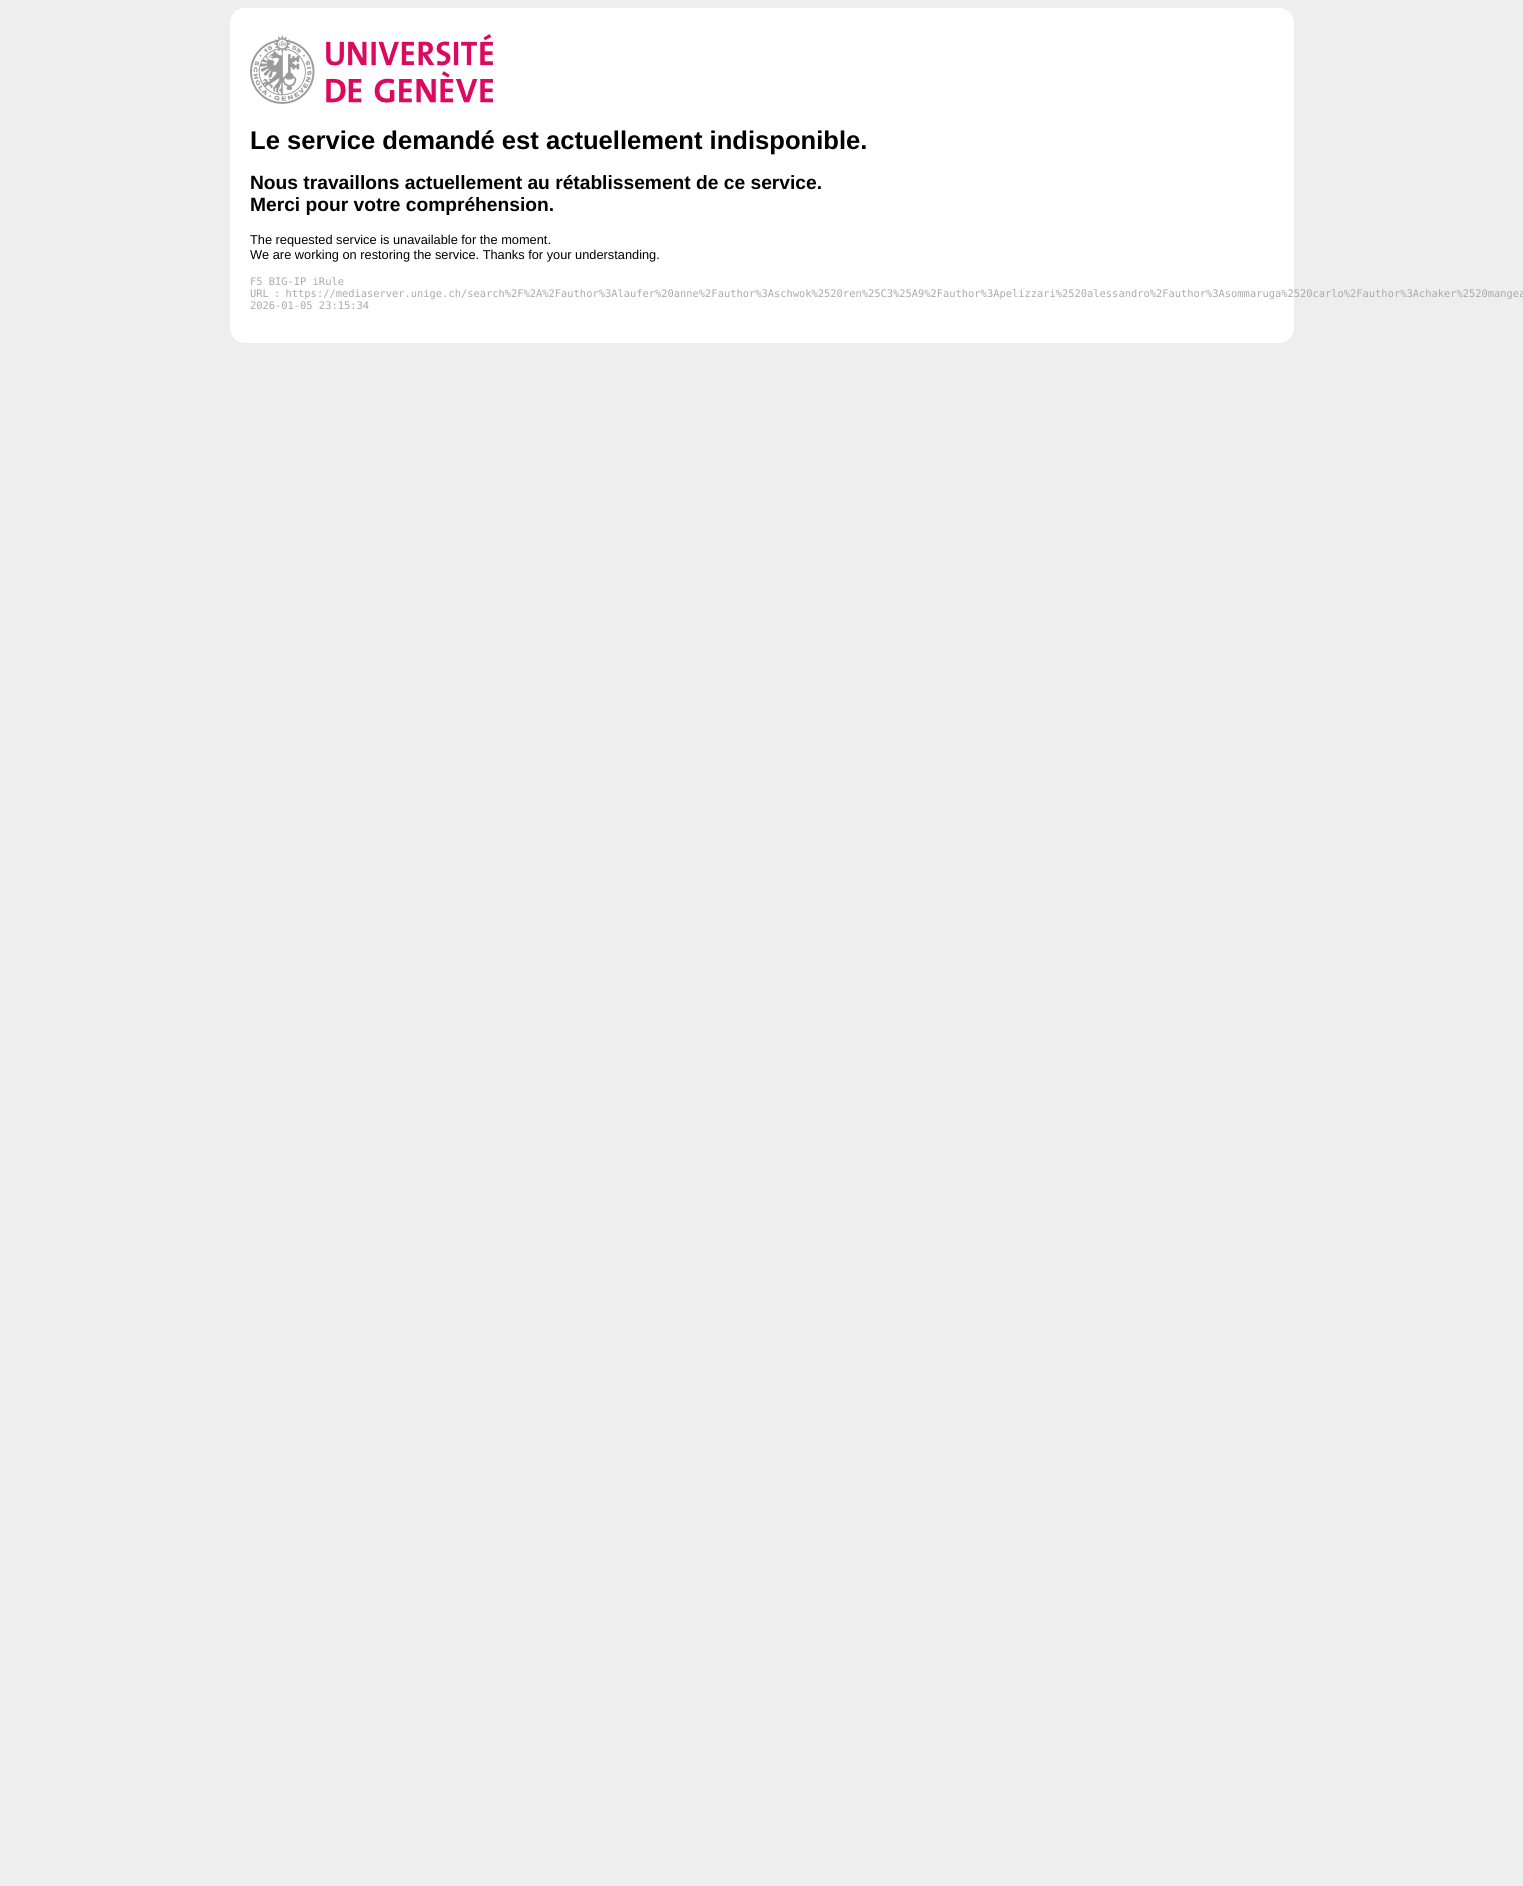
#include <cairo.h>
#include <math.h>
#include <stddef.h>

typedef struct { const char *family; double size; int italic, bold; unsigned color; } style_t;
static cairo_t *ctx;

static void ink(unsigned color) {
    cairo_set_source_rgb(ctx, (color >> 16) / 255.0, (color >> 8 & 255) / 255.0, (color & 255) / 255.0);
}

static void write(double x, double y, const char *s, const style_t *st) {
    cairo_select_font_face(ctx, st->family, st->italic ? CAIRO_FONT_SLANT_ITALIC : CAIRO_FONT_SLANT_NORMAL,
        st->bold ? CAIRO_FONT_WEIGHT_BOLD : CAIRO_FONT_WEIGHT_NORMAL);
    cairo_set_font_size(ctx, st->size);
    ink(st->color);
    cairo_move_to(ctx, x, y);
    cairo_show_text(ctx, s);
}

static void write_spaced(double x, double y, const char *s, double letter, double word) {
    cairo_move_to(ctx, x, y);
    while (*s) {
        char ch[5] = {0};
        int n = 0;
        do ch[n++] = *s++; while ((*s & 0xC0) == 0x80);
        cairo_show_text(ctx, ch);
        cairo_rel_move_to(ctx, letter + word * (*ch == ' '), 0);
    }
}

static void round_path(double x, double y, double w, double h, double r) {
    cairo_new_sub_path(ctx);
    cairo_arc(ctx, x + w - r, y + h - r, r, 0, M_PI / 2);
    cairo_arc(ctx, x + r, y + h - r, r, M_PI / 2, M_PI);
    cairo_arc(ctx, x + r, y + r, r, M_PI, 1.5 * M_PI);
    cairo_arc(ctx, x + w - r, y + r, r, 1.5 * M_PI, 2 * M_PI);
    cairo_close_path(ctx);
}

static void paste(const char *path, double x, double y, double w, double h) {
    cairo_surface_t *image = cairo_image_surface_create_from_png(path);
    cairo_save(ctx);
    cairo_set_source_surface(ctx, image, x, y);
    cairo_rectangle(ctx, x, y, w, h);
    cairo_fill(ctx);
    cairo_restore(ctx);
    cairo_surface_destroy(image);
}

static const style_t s1 = {"Liberation Sans", 25.6, 0, 1, 0x000000};
static const style_t s2 = {"Liberation Sans", 19.2, 0, 1, 0x000000};
static const style_t s3 = {"Liberation Sans", 12.8, 0, 0, 0x000000};
static const style_t s4 = {"DejaVu Sans Mono", 10.4, 0, 0, 0xaaaaaa};

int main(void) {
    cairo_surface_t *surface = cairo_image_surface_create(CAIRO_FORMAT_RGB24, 1523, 1886);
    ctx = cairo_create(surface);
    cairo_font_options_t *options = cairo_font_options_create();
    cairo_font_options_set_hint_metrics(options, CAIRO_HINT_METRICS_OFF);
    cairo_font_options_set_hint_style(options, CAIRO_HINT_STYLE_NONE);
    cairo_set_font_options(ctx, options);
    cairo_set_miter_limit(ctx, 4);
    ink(0xeeeeee);
    cairo_paint(ctx);
    ink(0xffffff);
    round_path(230, 8, 1064, 335, 15);
    cairo_fill(ctx);
    paste("pic1.png", 250, 34, 243, 70);
    write(250, 149, "Le service demandé est actuellement indisponible.", &s1);
    write(250, 189, "Nous travaillons actuellement au rétablissement de ce service.", &s2);
    write(250, 211, "Merci pour votre compréhension.", &s2);
    write(250, 244, "The requested service is unavailable for the moment.", &s3);
    write(250, 259, "We are working on restoring the service. Thanks for your understanding.", &s3);
    write(250, 285, "F5 BIG-IP iRule", &s4);
    write_spaced(250, 297, "URL : https://mediaserver.unige.ch/search%2F%2A%2Fauthor%3Alaufer%20anne%2Fauthor%3Aschwok%2520ren%25C3%25A9%2Fauthor%3Apelizzari%2520alessandro%2Fauthor%3Asommaruga%2520carlo%2Fauthor%3Achaker%2520mangea", 0, -1);
    write(250, 309, "2026-01-05 23:15:34", &s4);
    cairo_surface_write_to_png(surface, "screenshot.png");
    cairo_font_options_destroy(options);
    cairo_destroy(ctx);
    cairo_surface_destroy(surface);
    return 0;
}
